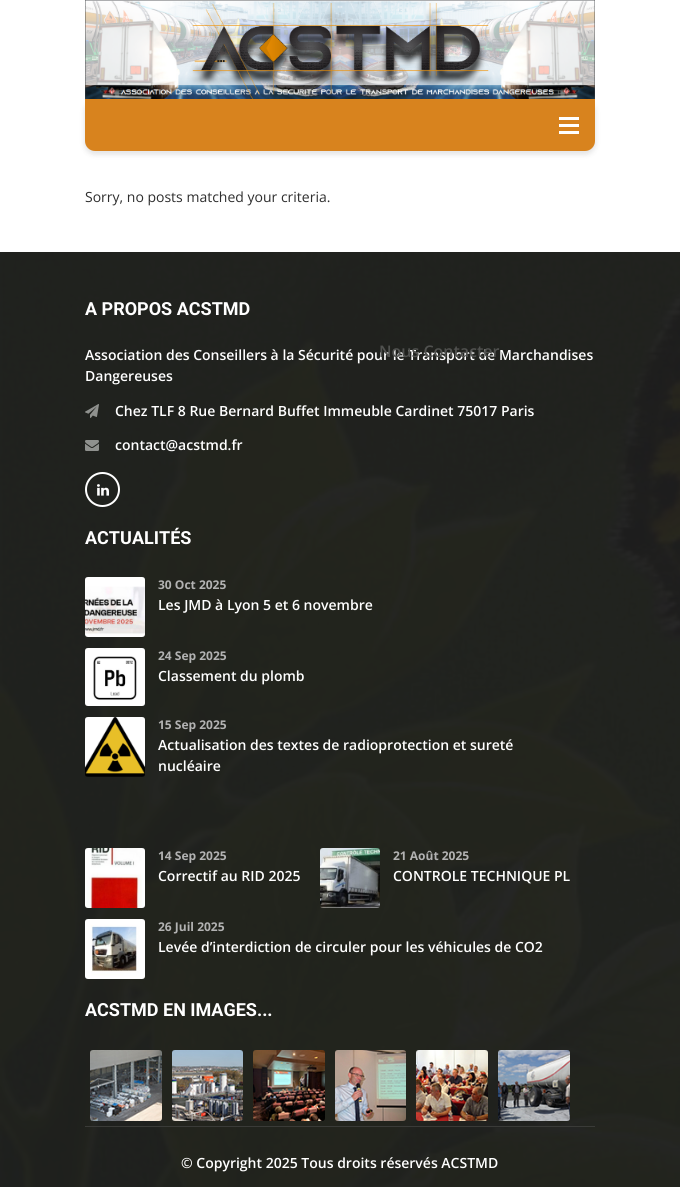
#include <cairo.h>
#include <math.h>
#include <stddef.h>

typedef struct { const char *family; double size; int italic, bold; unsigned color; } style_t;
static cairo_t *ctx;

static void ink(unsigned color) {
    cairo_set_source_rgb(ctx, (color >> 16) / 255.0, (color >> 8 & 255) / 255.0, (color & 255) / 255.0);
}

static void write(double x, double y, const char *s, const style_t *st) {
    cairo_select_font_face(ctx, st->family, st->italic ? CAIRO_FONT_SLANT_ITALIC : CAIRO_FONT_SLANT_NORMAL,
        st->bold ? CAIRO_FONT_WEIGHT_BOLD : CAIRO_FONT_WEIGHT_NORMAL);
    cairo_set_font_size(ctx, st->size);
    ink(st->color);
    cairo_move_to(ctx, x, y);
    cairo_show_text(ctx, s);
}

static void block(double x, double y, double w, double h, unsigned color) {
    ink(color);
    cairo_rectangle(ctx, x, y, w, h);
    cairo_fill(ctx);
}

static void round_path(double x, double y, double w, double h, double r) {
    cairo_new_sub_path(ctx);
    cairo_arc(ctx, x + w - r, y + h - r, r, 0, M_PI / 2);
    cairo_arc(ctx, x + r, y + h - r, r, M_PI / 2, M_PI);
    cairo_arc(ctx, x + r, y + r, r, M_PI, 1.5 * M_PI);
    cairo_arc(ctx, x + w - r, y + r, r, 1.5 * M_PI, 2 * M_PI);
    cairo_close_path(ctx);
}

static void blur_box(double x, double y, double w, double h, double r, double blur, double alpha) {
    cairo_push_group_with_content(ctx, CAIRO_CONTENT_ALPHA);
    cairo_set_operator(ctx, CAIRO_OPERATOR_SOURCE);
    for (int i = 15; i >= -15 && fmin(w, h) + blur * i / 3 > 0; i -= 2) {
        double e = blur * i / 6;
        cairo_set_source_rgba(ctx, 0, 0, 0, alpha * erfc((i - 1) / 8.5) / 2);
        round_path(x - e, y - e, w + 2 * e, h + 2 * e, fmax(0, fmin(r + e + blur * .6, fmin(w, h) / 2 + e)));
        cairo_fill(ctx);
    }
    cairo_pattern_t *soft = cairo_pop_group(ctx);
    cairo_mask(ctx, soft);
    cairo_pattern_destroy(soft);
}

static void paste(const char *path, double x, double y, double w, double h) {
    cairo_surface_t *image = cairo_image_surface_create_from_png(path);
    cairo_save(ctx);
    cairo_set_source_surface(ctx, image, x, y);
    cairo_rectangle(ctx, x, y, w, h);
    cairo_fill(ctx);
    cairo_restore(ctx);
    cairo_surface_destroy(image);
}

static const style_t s1 = {"Open Sans", 14, 0, 0, 0x2e2e2e};
static const style_t s2 = {"Roboto", 18, 0, 1, 0xffffff};
static const style_t s3 = {"Open Sans SemiBold", 14, 0, 0, 0xffffff};
static const style_t s4 = {"Open Sans", 12, 0, 1, 0xb2b2b2};
static const style_t s5 = {"Open Sans SemiBold", 16, 0, 0, 0x50514f};

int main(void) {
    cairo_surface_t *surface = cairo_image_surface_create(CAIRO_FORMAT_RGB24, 680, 1187);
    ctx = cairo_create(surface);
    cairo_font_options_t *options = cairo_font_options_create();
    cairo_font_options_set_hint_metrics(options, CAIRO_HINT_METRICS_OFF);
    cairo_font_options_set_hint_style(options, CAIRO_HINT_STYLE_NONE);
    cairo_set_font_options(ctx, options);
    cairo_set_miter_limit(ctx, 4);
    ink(0xffffff);
    cairo_paint(ctx);
    write(85, 202, "Sorry, no posts matched your criteria.", &s1);
    paste("pic1.png", 0, 252, 680, 935);
    block(85, 1126, 510, 1, 0x3a3b38);
    write(85, 315, "A PROPOS ACSTMD", &s2);
    write(85, 360, "Association des Conseillers à la Sécurité pour le Transport de Marchandises", &s3);
    write(85, 381, "Dangereuses", &s3);
    paste("pic2.png", 85, 404, 14, 14);
    write(115, 416, "Chez TLF 8 Rue Bernard Buffet Immeuble Cardinet 75017 Paris", &s3);
    paste("pic3.png", 85, 440, 14, 11);
    write(115, 450, "contact@acstmd.fr", &s3);
    cairo_new_path(ctx);
    cairo_arc(ctx, 102.5, 489.5, 16.5, 0, 2 * M_PI);
    cairo_stroke(ctx);
    paste("pic4.png", 97, 484, 12, 12);
    write(85, 544, "ACTUALITÉS", &s2);
    paste("pic5.png", 85, 577, 60, 60);
    write(158, 589, "30 Oct 2025", &s4);
    write(158, 610, "Les JMD à Lyon 5 et 6 novembre", &s3);
    paste("pic6.png", 85, 648, 60, 58);
    write(158, 660, "24 Sep 2025", &s4);
    write(158, 681, "Classement du plomb", &s3);
    paste("pic7.png", 85, 717, 60, 60);
    write(158, 729, "15 Sep 2025", &s4);
    write(158, 750, "Actualisation des textes de radioprotection et sureté", &s3);
    write(158, 771, "nucléaire", &s3);
    paste("pic8.png", 85, 848, 60, 60);
    write(158, 860, "14 Sep 2025", &s4);
    write(158, 881, "Correctif au RID 2025", &s3);
    paste("pic9.png", 320, 848, 60, 60);
    write(393, 860, "21 Août 2025", &s4);
    write(393, 881, "CONTROLE TECHNIQUE PL", &s3);
    paste("pic10.png", 85, 919, 60, 60);
    write(158, 931, "26 Juil 2025", &s4);
    write(158, 952, "Levée d’interdiction de circuler pour les véhicules de CO2", &s3);
    write(85, 1016, "ACSTMD EN IMAGES...", &s2);
    paste("pic11.png", 90, 1050, 72, 71);
    paste("pic12.png", 172, 1050, 71, 71);
    paste("pic13.png", 253, 1050, 72, 71);
    paste("pic14.png", 335, 1050, 71, 71);
    paste("pic15.png", 416, 1050, 72, 71);
    paste("pic16.png", 498, 1050, 72, 71);
    write(181, 1168, "© Copyright 2025 Tous droits réservés ACSTMD", &s3);
    paste("pic17.png", 85, 0, 510, 99);
    ink(0x000000);
    blur_box(84, 101, 512, 54, 11, 2.5, 0.1);
    ink(0xd8831e);
    cairo_new_path(ctx);
    cairo_move_to(ctx, 85, 99);
    cairo_line_to(ctx, 595, 99);
    cairo_line_to(ctx, 595, 141);
    cairo_curve_to(ctx, 595, 146.5, 590.5, 151, 585, 151);
    cairo_line_to(ctx, 95, 151);
    cairo_curve_to(ctx, 89.5, 151, 85, 146.5, 85, 141);
    cairo_close_path(ctx);
    cairo_fill(ctx);
    block(559, 131, 20, 3, 0xffffff);
    block(559, 124, 20, 3, 0xffffff);
    block(559, 117, 20, 3, 0xffffff);
    write(379, 357, "Nous Contacter", &s5);
    cairo_surface_write_to_png(surface, "screenshot.png");
    cairo_font_options_destroy(options);
    cairo_destroy(ctx);
    cairo_surface_destroy(surface);
    return 0;
}
